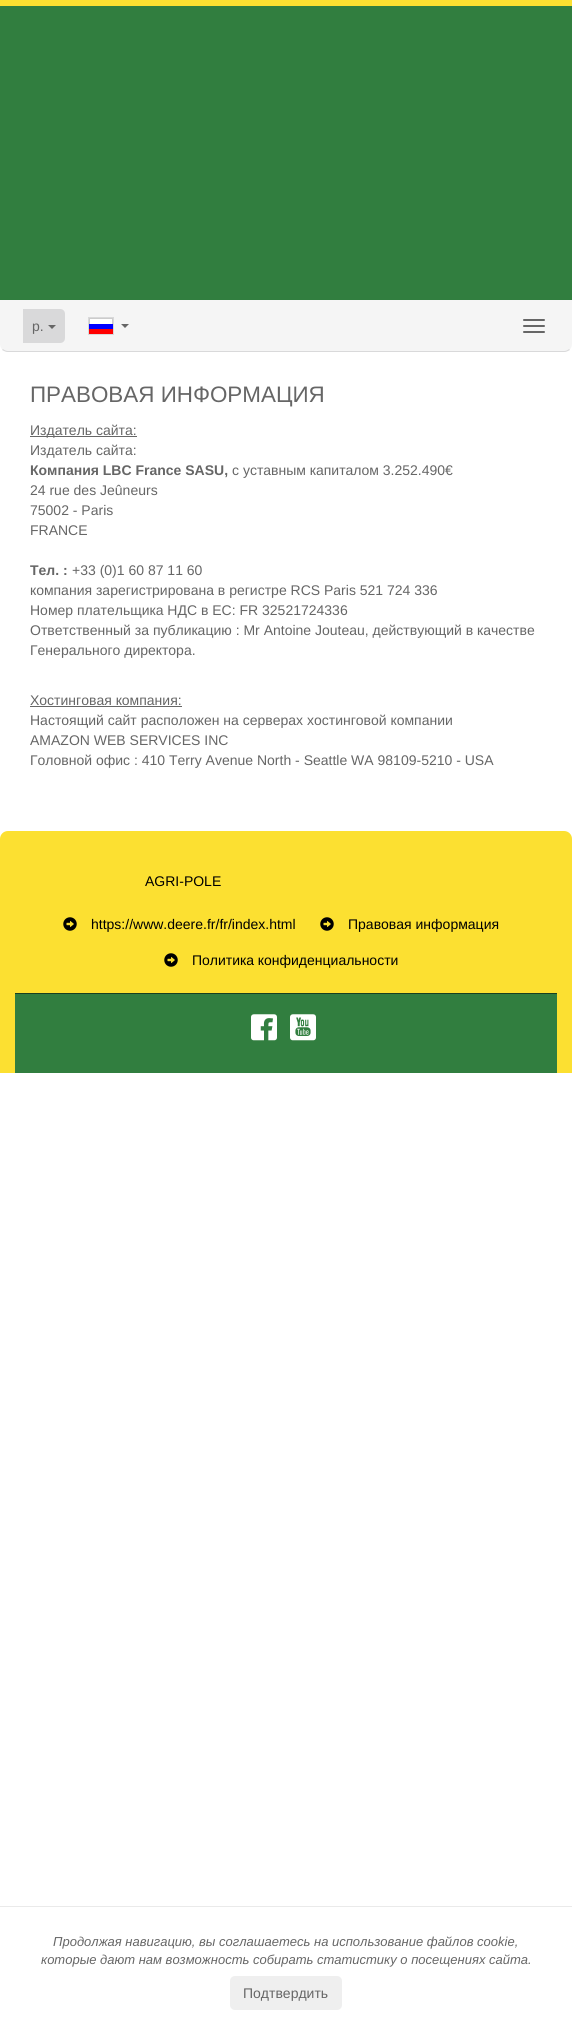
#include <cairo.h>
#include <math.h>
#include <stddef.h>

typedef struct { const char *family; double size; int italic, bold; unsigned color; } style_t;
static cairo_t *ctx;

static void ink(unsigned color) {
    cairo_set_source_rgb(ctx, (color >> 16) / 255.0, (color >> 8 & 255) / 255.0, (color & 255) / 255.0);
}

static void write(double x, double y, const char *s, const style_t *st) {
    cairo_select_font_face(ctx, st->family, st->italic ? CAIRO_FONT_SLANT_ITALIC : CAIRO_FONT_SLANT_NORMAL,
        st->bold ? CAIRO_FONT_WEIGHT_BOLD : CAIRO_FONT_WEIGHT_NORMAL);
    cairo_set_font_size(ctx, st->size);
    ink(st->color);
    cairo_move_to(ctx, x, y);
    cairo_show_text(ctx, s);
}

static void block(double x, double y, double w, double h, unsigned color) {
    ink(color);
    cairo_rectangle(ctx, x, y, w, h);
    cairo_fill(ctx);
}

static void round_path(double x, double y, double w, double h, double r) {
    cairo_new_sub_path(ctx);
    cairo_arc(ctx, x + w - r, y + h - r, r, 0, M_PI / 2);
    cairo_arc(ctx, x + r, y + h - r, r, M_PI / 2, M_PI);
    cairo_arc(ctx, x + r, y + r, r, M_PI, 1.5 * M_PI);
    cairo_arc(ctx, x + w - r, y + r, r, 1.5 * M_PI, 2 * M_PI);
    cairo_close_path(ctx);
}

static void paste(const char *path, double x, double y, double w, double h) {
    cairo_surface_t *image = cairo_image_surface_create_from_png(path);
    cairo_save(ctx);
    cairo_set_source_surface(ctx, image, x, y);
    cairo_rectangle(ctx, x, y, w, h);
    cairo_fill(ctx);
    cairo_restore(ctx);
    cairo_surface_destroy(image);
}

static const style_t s1 = {"Liberation Sans", 14, 0, 0, 0x666666};
static const style_t s2 = {"Liberation Sans", 22.4, 0, 0, 0x666666};
static const style_t s3 = {"Liberation Sans", 14, 0, 1, 0x666666};
static const style_t s4 = {"Liberation Sans", 14, 0, 0, 0x000000};
static const style_t s5 = {"Liberation Sans", 13, 1, 0, 0x666666};

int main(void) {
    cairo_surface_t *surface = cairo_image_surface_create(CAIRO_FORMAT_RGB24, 572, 2030);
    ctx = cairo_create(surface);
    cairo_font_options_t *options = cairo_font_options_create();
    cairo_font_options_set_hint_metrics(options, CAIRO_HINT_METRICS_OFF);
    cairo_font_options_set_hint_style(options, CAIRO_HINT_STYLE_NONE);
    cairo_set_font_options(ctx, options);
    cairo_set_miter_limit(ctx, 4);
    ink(0xffffff);
    cairo_paint(ctx);
    block(0, 6, 572, 294, 0x317e3f);
    block(0, 0, 572, 6, 0xfce031);
    ink(0xf5f5f5);
    cairo_new_path(ctx);
    cairo_move_to(ctx, 0, 300);
    cairo_line_to(ctx, 572, 300);
    cairo_line_to(ctx, 572, 344);
    cairo_curve_to(ctx, 572, 348.5, 568.5, 352, 564, 352);
    cairo_line_to(ctx, 8, 352);
    cairo_curve_to(ctx, 3.5, 352, 0, 348.5, 0, 344);
    cairo_close_path(ctx);
    cairo_fill(ctx);
    ink(0xd9d9da);
    cairo_new_path(ctx);
    cairo_move_to(ctx, 8, 352);
    cairo_line_to(ctx, 564, 352);
    cairo_curve_to(ctx, 566, 352, 568, 351, 570, 350);
    cairo_line_to(ctx, 569, 349);
    cairo_curve_to(ctx, 568, 350, 566, 351, 564, 351);
    cairo_line_to(ctx, 8, 351);
    cairo_curve_to(ctx, 6, 351, 4, 350, 3, 349);
    cairo_line_to(ctx, 2, 350);
    cairo_curve_to(ctx, 4, 351, 6, 352, 8, 352);
    cairo_close_path(ctx);
    cairo_fill(ctx);
    cairo_new_path(ctx);
    cairo_move_to(ctx, 23, 309);
    cairo_line_to(ctx, 60, 309);
    cairo_curve_to(ctx, 63, 309, 65, 311, 65, 314);
    cairo_line_to(ctx, 65, 338);
    cairo_curve_to(ctx, 65, 341, 63, 343, 60, 343);
    cairo_line_to(ctx, 23, 343);
    cairo_close_path(ctx);
    cairo_fill(ctx);
    write(32, 331, "p.", &s1);
    cairo_new_path(ctx);
    cairo_move_to(ctx, 48, 325);
    cairo_line_to(ctx, 56, 325);
    cairo_line_to(ctx, 52, 329);
    cairo_close_path(ctx);
    cairo_fill(ctx);
    cairo_rectangle(ctx, 88.5, 317.5, 25, 17);
    ink(0xd9d9da);
    cairo_set_line_width(ctx, 1);
    cairo_stroke(ctx);
    paste("pic1.png", 89, 318, 24, 16);
    ink(0x666666);
    cairo_new_path(ctx);
    cairo_move_to(ctx, 121, 324);
    cairo_line_to(ctx, 129, 324);
    cairo_line_to(ctx, 125, 328);
    cairo_close_path(ctx);
    cairo_fill(ctx);
    round_path(523, 319, 22, 2, 1);
    cairo_fill(ctx);
    round_path(523, 325, 22, 2, 1);
    cairo_fill(ctx);
    round_path(523, 331, 22, 2, 1);
    cairo_fill(ctx);
    write(30, 402, "ПРАВОВАЯ ИНФОРМАЦИЯ", &s2);
    block(30, 436, 107, 1, 0x666666);
    write(30, 435, "Издатель сайта:", &s1);
    write(30, 455, "Издатель сайта:", &s1);
    write(30, 475, "Компания LBC France SASU,", &s3);
    write(232, 475, "с уставным капиталом 3.252.490€", &s1);
    write(30, 495, "24 rue des Jeûneurs", &s1);
    write(30, 515, "75002 - Paris", &s1);
    write(30, 535, "FRANCE", &s1);
    write(30, 575, "Tел. :", &s3);
    write(72, 575, "+33 (0)1 60 87 11 60", &s1);
    write(30, 595, "компания зарегистрирована в регистре RCS Paris 521 724 336", &s1);
    write(30, 615, "Номер плательщика НДС в ЕС: FR 32521724336", &s1);
    write(30, 635, "Ответственный за публикацию : Mr Antoine Jouteau, действующий в качестве", &s1);
    write(30, 655, "Генерального директора.", &s1);
    write(30, 705, "Хостинговая компания:", &s1);
    block(30, 706, 152, 1, 0x666666);
    write(30, 725, "Настоящий сайт расположен на серверах хостинговой компании", &s1);
    write(30, 745, "AMAZON WEB SERVICES INC", &s1);
    write(30, 765, "Головной офис : 410 Terry Avenue North - Seattle WA 98109-5210 - USA", &s1);
    ink(0xfce031);
    cairo_new_path(ctx);
    cairo_move_to(ctx, 8, 831);
    cairo_line_to(ctx, 564, 831);
    cairo_curve_to(ctx, 568.5, 831, 572, 834.5, 572, 839);
    cairo_line_to(ctx, 572, 1073);
    cairo_line_to(ctx, 0, 1073);
    cairo_line_to(ctx, 0, 839);
    cairo_curve_to(ctx, 0, 834.5, 3.5, 831, 8, 831);
    cairo_close_path(ctx);
    cairo_fill(ctx);
    write(145, 886, "AGRI-POLE", &s4);
    paste("pic2.png", 63, 917, 14, 14);
    write(91, 929, "https://www.deere.fr/fr/index.html", &s4);
    paste("pic2.png", 320, 917, 14, 14);
    write(348, 929, "Правовая информация", &s4);
    paste("pic2.png", 164, 953, 14, 14);
    write(192, 965, "Политика конфиденциальности", &s4);
    block(15, 994, 542, 79, 0x317e3f);
    block(15, 993, 542, 1, 0x194020);
    paste("pic3.png", 251, 1014, 26, 27);
    paste("pic4.png", 290, 1014, 26, 27);
    block(0, 1906, 572, 1, 0xeaeaea);
    write(53, 1946, "Продолжая навигацию, вы соглашаетесь на использование файлов cookie,", &s5);
    write(41, 1964, "которые дают нам возможность собирать статистику о посещениях сайта.", &s5);
    ink(0xefefef);
    round_path(230, 1976, 112, 34, 5);
    cairo_fill(ctx);
    write(243, 1998, "Подтвердить", &s1);
    cairo_surface_write_to_png(surface, "screenshot.png");
    cairo_font_options_destroy(options);
    cairo_destroy(ctx);
    cairo_surface_destroy(surface);
    return 0;
}
